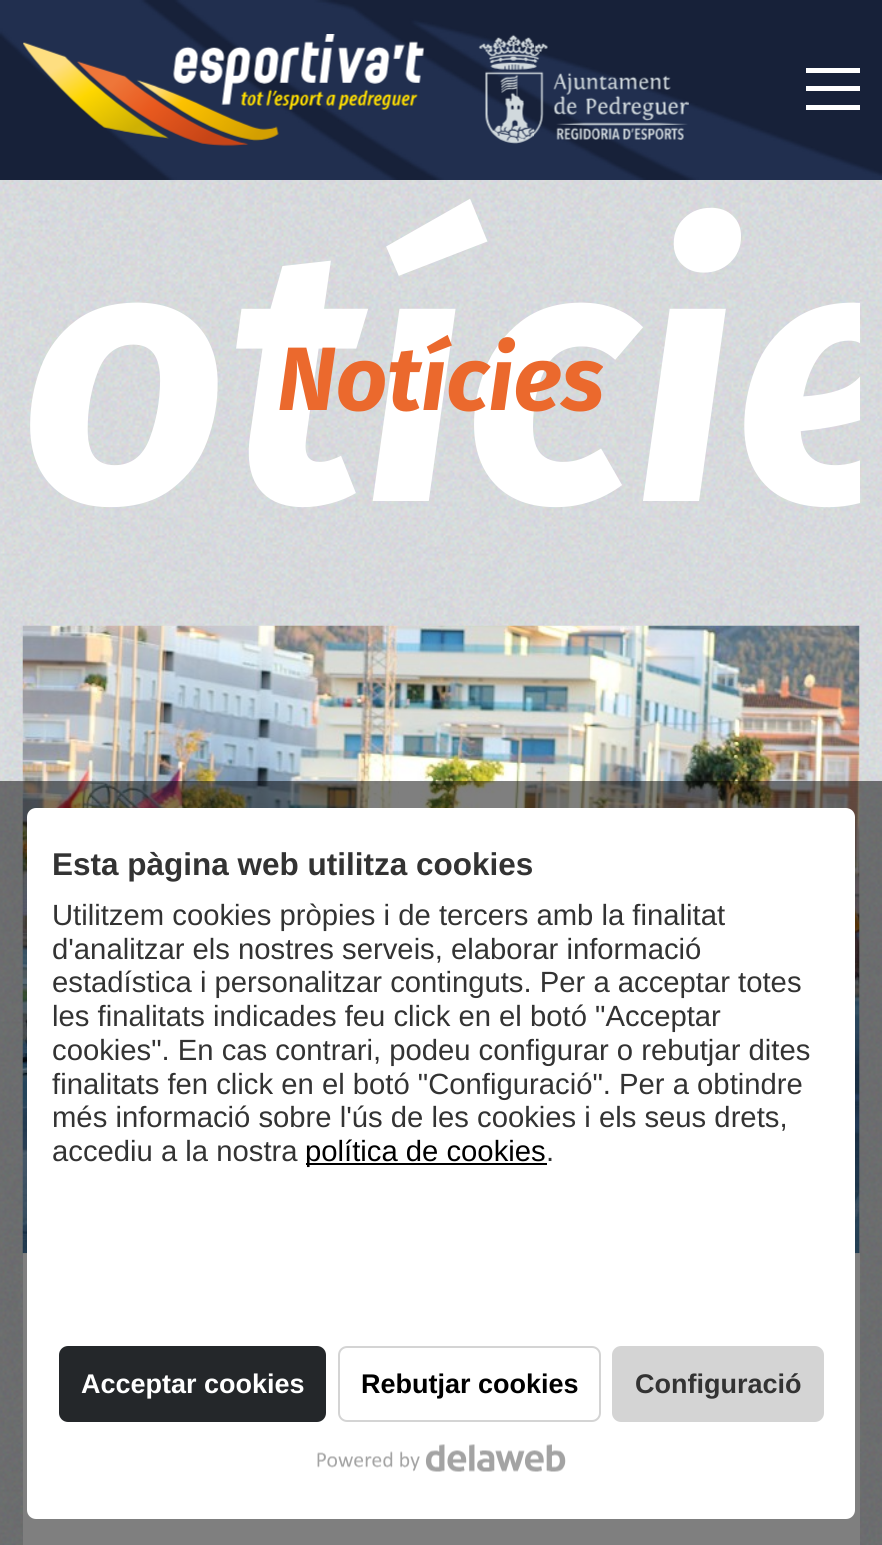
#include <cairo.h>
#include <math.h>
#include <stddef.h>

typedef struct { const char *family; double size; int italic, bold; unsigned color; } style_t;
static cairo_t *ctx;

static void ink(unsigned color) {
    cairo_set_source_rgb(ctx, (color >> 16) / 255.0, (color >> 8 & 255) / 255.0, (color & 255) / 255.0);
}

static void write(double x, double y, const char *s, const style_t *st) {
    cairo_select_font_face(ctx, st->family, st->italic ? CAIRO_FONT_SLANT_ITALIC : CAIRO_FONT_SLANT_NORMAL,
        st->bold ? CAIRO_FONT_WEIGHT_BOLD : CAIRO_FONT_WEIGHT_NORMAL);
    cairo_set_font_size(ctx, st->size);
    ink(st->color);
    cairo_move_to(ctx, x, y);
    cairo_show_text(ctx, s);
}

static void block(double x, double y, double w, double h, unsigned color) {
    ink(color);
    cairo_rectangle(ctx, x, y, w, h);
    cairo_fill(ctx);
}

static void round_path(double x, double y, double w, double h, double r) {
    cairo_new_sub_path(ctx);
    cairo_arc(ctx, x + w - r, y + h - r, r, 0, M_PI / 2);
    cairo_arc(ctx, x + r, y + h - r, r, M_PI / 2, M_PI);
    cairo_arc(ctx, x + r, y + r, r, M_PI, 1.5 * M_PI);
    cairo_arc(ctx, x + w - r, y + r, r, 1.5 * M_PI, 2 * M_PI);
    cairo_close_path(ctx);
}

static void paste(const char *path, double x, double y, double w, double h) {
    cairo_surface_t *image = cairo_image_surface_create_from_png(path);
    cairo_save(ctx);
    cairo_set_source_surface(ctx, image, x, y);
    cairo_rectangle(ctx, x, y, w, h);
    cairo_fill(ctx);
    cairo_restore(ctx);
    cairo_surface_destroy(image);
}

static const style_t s1 = {"Fira Sans", 362, 1, 1, 0xffffff};
static const style_t s2 = {"Fira Sans", 90, 1, 1, 0xeb692d};
static const style_t s3 = {"Liberation Sans", 31.5, 0, 1, 0x333333};
static const style_t s4 = {"Liberation Sans", 29.25, 0, 0, 0x333333};
static const style_t s5 = {"Liberation Sans", 29.25, 0, 0, 0x000000};
static const style_t s6 = {"Liberation Sans", 27, 0, 1, 0xffffff};
static const style_t s7 = {"Liberation Sans", 27, 0, 1, 0x000000};
static const style_t s8 = {"Liberation Sans", 27, 0, 1, 0x333333};

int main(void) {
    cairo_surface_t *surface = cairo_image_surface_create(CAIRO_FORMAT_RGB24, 882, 1545);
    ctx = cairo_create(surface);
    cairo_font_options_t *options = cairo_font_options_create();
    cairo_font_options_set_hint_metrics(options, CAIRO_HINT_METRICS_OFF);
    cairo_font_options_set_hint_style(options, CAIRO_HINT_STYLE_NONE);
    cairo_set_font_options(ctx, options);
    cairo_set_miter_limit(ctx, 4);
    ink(0xffffff);
    cairo_paint(ctx);
    paste("pic1.png", 0, 180, 882, 1365);
    block(0, 0, 882, 180, 0x172139);
    paste("pic2.png", 0, 0, 882, 180);
    paste("pic3.png", 23, 34, 666, 112);
    ink(0xffffff);
    cairo_new_path(ctx);
    cairo_move_to(ctx, 860, 73);
    cairo_line_to(ctx, 806, 73);
    cairo_line_to(ctx, 806, 68);
    cairo_line_to(ctx, 860, 68);
    cairo_close_path(ctx);
    cairo_move_to(ctx, 860, 86);
    cairo_line_to(ctx, 806, 86);
    cairo_line_to(ctx, 806, 91);
    cairo_line_to(ctx, 860, 91);
    cairo_close_path(ctx);
    cairo_move_to(ctx, 860, 105);
    cairo_line_to(ctx, 806, 105);
    cairo_line_to(ctx, 806, 110);
    cairo_line_to(ctx, 860, 110);
    cairo_close_path(ctx);
    cairo_fill(ctx);
    cairo_save(ctx);
    cairo_rectangle(ctx, 23, 180, 837, 401);
    cairo_clip(ctx);
    write(20, 501, "otície", &s1);
    cairo_restore(ctx);
    write(277, 410, "Notícies", &s2);
    block(23, 1253, 837, 292, 0xffffff);
    paste("pic4.png", 22, 625, 838, 629);
    cairo_set_source_rgba(ctx, 0, 0, 0, 0.5);
    cairo_rectangle(ctx, 0, 781, 882, 764);
    cairo_fill(ctx);
    ink(0xffffff);
    round_path(28, 809, 826, 709, 8);
    cairo_fill_preserve(ctx);
    cairo_stroke(ctx);
    write(52, 875, "Esta pàgina web utilitza cookies", &s3);
    write(52, 925, "Utilitzem cookies pròpies i de tercers amb la finalitat", &s4);
    write(52, 959, "d'analitzar els nostres serveis, elaborar informació", &s4);
    write(52, 992, "estadística i personalitzar continguts. Per a acceptar totes", &s4);
    write(52, 1026, "les finalitats indicades feu click en el botó \"Acceptar", &s4);
    write(52, 1060, "cookies\". En cas contrari, podeu configurar o rebutjar dites", &s4);
    write(52, 1094, "finalitats fen click en el botó \"Configuració\". Per a obtindre", &s4);
    write(52, 1127, "més informació sobre l'ús de les cookies i els seus drets,", &s4);
    write(52, 1161, "accediu a la nostra", &s4);
    block(306, 1163, 241, 2, 0x000000);
    write(305, 1161, "política de cookies", &s5);
    write(546, 1161, ".", &s4);
    ink(0x24272a);
    round_path(59, 1346, 267, 76, 9);
    cairo_fill(ctx);
    write(81, 1393, "Acceptar cookies", &s6);
    round_path(339, 1347, 261, 74, 8);
    ink(0xd4d4d4);
    cairo_stroke(ctx);
    write(361, 1393, "Rebutjar cookies", &s7);
    ink(0xd4d4d4);
    round_path(612, 1346, 212, 76, 9);
    cairo_fill(ctx);
    write(635, 1393, "Configuració", &s8);
    paste("pic5.png", 317, 1444, 249, 28);
    cairo_surface_write_to_png(surface, "screenshot.png");
    cairo_font_options_destroy(options);
    cairo_destroy(ctx);
    cairo_surface_destroy(surface);
    return 0;
}
